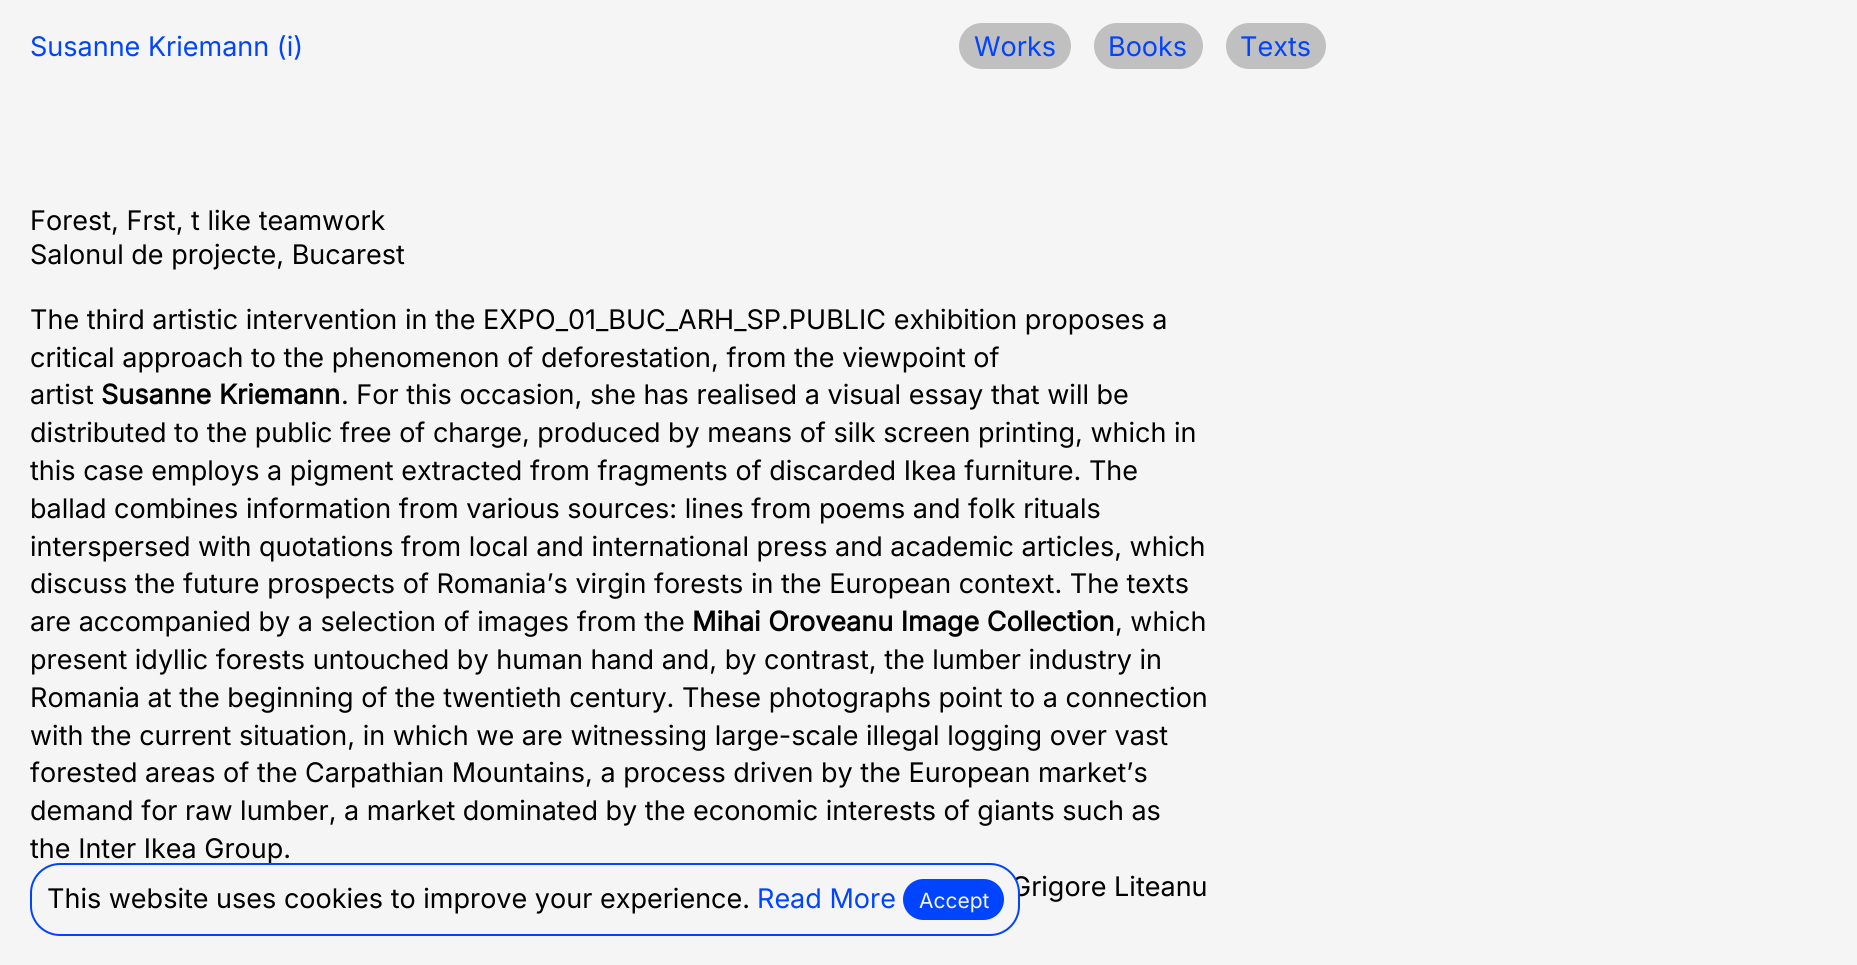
#include <cairo.h>
#include <math.h>
#include <stddef.h>

typedef struct { const char *family; double size; int italic, bold; unsigned color; } style_t;
static cairo_t *ctx;

static void ink(unsigned color) {
    cairo_set_source_rgb(ctx, (color >> 16) / 255.0, (color >> 8 & 255) / 255.0, (color & 255) / 255.0);
}

static void write(double x, double y, const char *s, const style_t *st) {
    cairo_select_font_face(ctx, st->family, st->italic ? CAIRO_FONT_SLANT_ITALIC : CAIRO_FONT_SLANT_NORMAL,
        st->bold ? CAIRO_FONT_WEIGHT_BOLD : CAIRO_FONT_WEIGHT_NORMAL);
    cairo_set_font_size(ctx, st->size);
    ink(st->color);
    cairo_move_to(ctx, x, y);
    cairo_show_text(ctx, s);
}

static void round_path(double x, double y, double w, double h, double r) {
    cairo_new_sub_path(ctx);
    cairo_arc(ctx, x + w - r, y + h - r, r, 0, M_PI / 2);
    cairo_arc(ctx, x + r, y + h - r, r, M_PI / 2, M_PI);
    cairo_arc(ctx, x + r, y + r, r, M_PI, 1.5 * M_PI);
    cairo_arc(ctx, x + w - r, y + r, r, 1.5 * M_PI, 2 * M_PI);
    cairo_close_path(ctx);
}

static const style_t s1 = {"Inter", 27, 0, 0, 0x0044ff};
static const style_t s2 = {"Inter", 27, 0, 0, 0x000000};
static const style_t s3 = {"Inter", 27, 0, 1, 0x000000};
static const style_t s4 = {"Inter", 21, 0, 0, 0xf5f5f5};

int main(void) {
    cairo_surface_t *surface = cairo_image_surface_create(CAIRO_FORMAT_RGB24, 1857, 965);
    ctx = cairo_create(surface);
    cairo_font_options_t *options = cairo_font_options_create();
    cairo_font_options_set_hint_metrics(options, CAIRO_HINT_METRICS_OFF);
    cairo_font_options_set_hint_style(options, CAIRO_HINT_STYLE_NONE);
    cairo_set_font_options(ctx, options);
    cairo_set_miter_limit(ctx, 4);
    ink(0xf5f5f5);
    cairo_paint(ctx);
    write(30, 56, "Susanne Kriemann (i)", &s1);
    ink(0xc0c0c0);
    round_path(959, 23, 112, 46, 23);
    cairo_fill(ctx);
    write(974, 56, "Works", &s1);
    ink(0xc0c0c0);
    round_path(1094, 23, 109, 46, 23);
    cairo_fill(ctx);
    write(1108, 56, "Books", &s1);
    ink(0xc0c0c0);
    round_path(1226, 23, 100, 46, 23);
    cairo_fill(ctx);
    write(1240, 56, "Texts", &s1);
    write(30, 230, "Forest, Frst, t like teamwork", &s2);
    write(30, 264, "Salonul de projecte, Bucarest", &s2);
    write(30, 329, "The third artistic intervention in the EXPO_01_BUC_ARH_SP.PUBLIC exhibition proposes a", &s2);
    write(30, 367, "critical approach to the phenomenon of deforestation, from the viewpoint of", &s2);
    write(30, 404, "artist", &s2);
    write(101, 404, "Susanne Kriemann", &s3);
    write(341, 404, ". For this occasion, she has realised a visual essay that will be", &s2);
    write(30, 442, "distributed to the public free of charge, produced by means of silk screen printing, which in", &s2);
    write(30, 480, "this case employs a pigment extracted from fragments of discarded Ikea furniture. The", &s2);
    write(30, 518, "ballad combines information from various sources: lines from poems and folk rituals", &s2);
    write(30, 556, "interspersed with quotations from local and international press and academic articles, which", &s2);
    write(30, 593, "discuss the future prospects of Romania’s virgin forests in the European context. The texts", &s2);
    write(30, 631, "are accompanied by a selection of images from the", &s2);
    write(692, 631, "Mihai Oroveanu Image Collection", &s3);
    write(1115, 631, ", which", &s2);
    write(30, 669, "present idyllic forests untouched by human hand and, by contrast, the lumber industry in", &s2);
    write(30, 707, "Romania at the beginning of the twentieth century. These photographs point to a connection", &s2);
    write(30, 745, "with the current situation, in which we are witnessing large-scale illegal logging over vast", &s2);
    write(30, 782, "forested areas of the Carpathian Mountains, a process driven by the European market’s", &s2);
    write(30, 820, "demand for raw lumber, a market dominated by the economic interests of giants such as", &s2);
    write(30, 858, "the Inter Ikea Group.", &s2);
    write(1011, 896, "Grigore Liteanu", &s2);
    ink(0xf5f5f5);
    round_path(31, 864, 988, 71, 29);
    cairo_fill_preserve(ctx);
    ink(0x0044ff);
    cairo_stroke(ctx);
    write(47, 908, "This website uses cookies to improve your experience.", &s2);
    write(757, 908, "Read More", &s1);
    round_path(903, 879, 101, 41, 20.5);
    cairo_fill(ctx);
    write(919, 908, "Accept", &s4);
    cairo_surface_write_to_png(surface, "screenshot.png");
    cairo_font_options_destroy(options);
    cairo_destroy(ctx);
    cairo_surface_destroy(surface);
    return 0;
}
